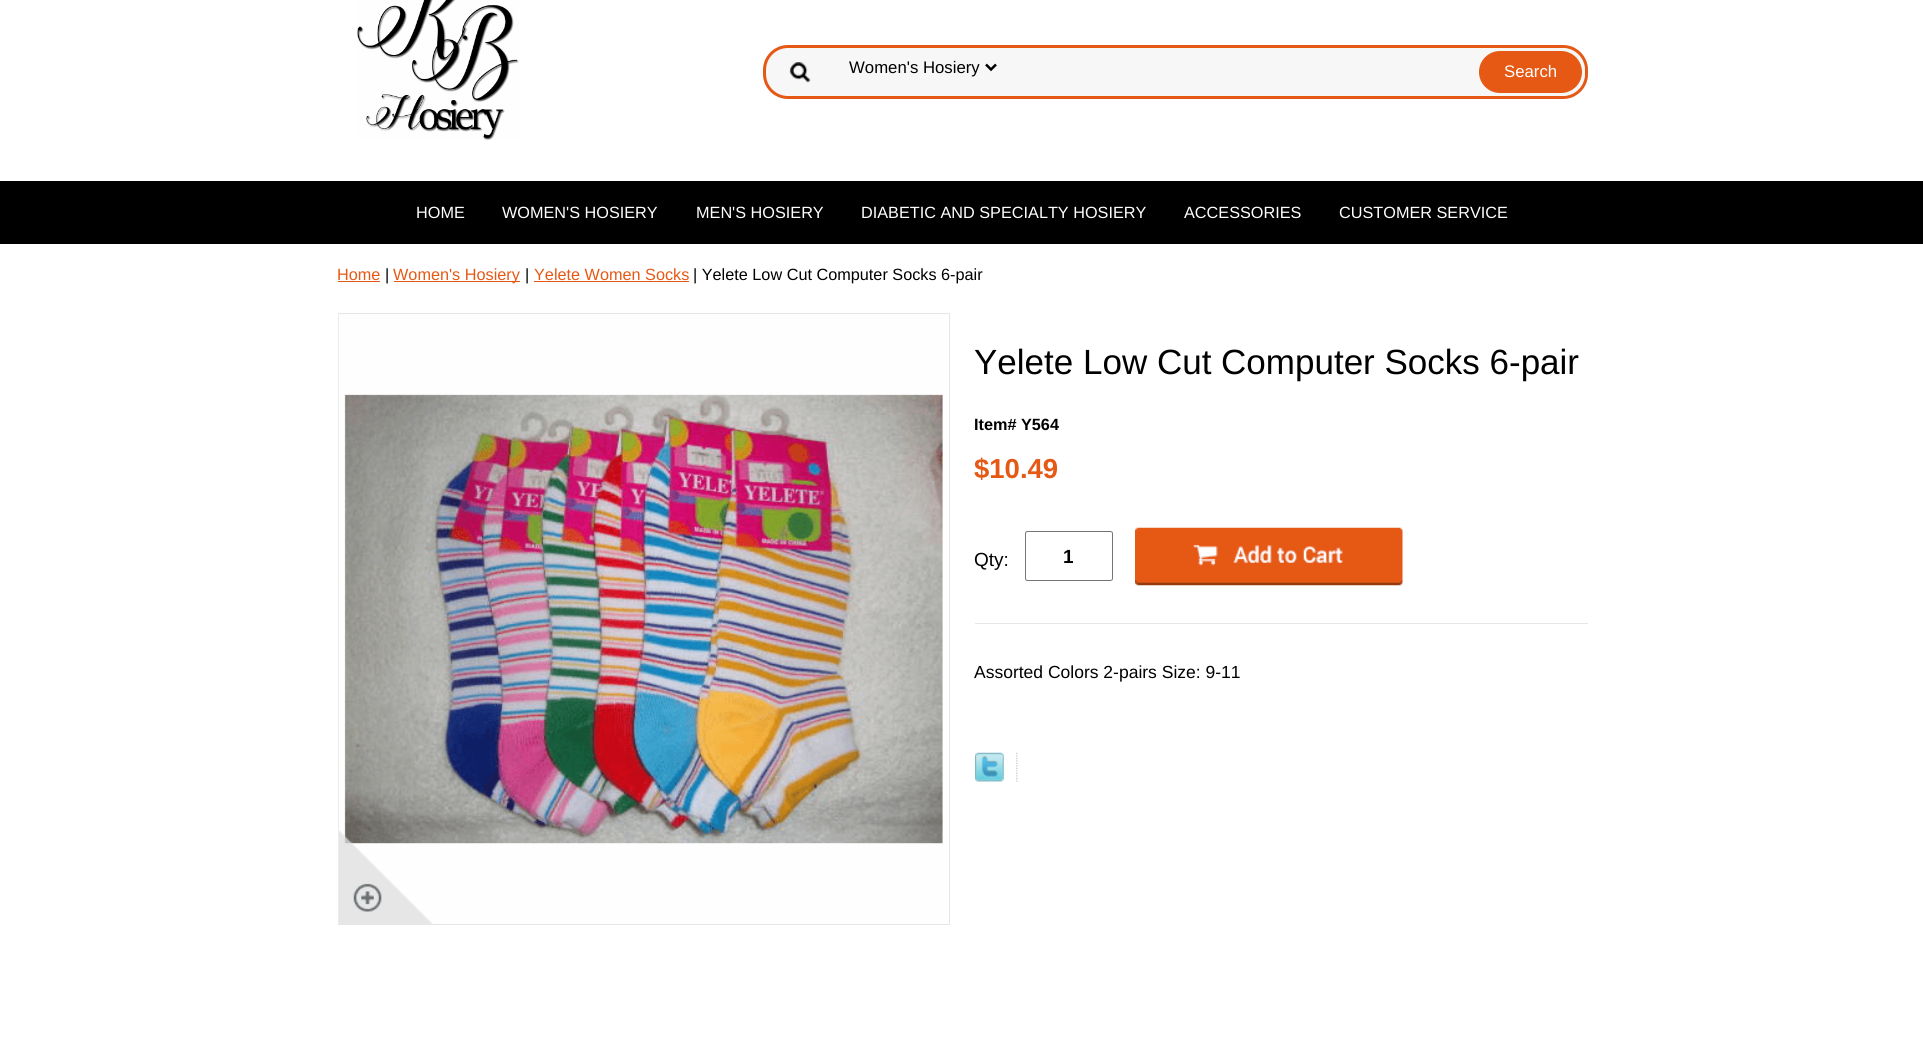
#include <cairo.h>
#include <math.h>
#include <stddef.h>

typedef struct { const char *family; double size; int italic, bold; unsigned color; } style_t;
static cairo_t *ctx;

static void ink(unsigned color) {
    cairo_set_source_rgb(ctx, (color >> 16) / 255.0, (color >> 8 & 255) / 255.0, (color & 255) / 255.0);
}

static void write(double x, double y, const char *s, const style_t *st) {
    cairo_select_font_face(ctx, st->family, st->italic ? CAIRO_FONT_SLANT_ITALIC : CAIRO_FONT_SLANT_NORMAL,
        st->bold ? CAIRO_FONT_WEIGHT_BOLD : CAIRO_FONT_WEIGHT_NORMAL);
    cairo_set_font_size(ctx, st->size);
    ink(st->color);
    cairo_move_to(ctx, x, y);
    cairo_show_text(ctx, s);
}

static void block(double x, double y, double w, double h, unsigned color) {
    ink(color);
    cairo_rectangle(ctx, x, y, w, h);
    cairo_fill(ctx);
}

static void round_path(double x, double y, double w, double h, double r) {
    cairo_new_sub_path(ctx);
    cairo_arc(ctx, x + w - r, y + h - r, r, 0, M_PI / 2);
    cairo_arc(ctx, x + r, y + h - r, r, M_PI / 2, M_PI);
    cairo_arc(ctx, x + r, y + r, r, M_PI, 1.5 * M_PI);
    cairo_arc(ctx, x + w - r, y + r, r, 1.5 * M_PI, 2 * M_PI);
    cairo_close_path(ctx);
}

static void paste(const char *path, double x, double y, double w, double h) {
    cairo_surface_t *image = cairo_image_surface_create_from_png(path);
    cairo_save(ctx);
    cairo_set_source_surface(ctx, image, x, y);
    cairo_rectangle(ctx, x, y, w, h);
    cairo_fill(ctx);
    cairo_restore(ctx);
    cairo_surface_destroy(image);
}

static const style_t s1 = {"Liberation Sans", 16.75, 0, 0, 0x000000};
static const style_t s2 = {"Liberation Sans", 16.75, 0, 0, 0xffffff};
static const style_t s3 = {"Liberation Sans", 16.25, 0, 0, 0xffffff};
static const style_t s4 = {"Liberation Sans", 16.25, 0, 0, 0xe55915};
static const style_t s5 = {"Liberation Sans", 16.25, 0, 0, 0x000000};
static const style_t s6 = {"Liberation Sans", 35, 0, 0, 0x000000};
static const style_t s7 = {"Liberation Sans", 16.25, 0, 1, 0x000000};
static const style_t s8 = {"Liberation Sans", 27.5, 0, 1, 0xe55915};
static const style_t s9 = {"Liberation Sans", 19, 0, 0, 0x000000};
static const style_t s10 = {"Liberation Sans", 19, 0, 1, 0x000000};
static const style_t s11 = {"Liberation Sans", 17.5, 0, 0, 0x000000};

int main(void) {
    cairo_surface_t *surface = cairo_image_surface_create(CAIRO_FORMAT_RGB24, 1923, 1057);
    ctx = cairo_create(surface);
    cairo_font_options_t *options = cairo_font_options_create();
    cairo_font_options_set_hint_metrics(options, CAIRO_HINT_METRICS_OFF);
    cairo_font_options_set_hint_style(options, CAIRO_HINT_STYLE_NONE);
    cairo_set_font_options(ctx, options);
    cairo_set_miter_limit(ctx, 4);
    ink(0xffffff);
    cairo_paint(ctx);
    paste("pic1.png", 357, 0, 162, 140);
    ink(0xf7f7f7);
    round_path(763, 45, 825, 54, 25);
    cairo_fill(ctx);
    paste("pic2.png", 789, 62, 22, 21);
    round_path(764.5, 46.5, 822, 51, 23.5);
    ink(0xe55915);
    cairo_set_line_width(ctx, 3);
    cairo_stroke(ctx);
    cairo_new_path(ctx);
    cairo_move_to(ctx, 986, 64.5);
    cairo_line_to(ctx, 991, 69.5);
    cairo_line_to(ctx, 996, 64.5);
    ink(0x000000);
    cairo_set_line_width(ctx, 2.5);
    cairo_stroke(ctx);
    write(849, 73, "Women's Hosiery", &s1);
    ink(0xe55915);
    round_path(1477.5, 49.5, 106, 45, 22.5);
    cairo_fill_preserve(ctx);
    ink(0xf7f7f7);
    cairo_set_line_width(ctx, 3);
    cairo_stroke(ctx);
    write(1504, 77, "Search", &s2);
    block(0, 181, 1923, 63, 0x000000);
    write(416, 218, "HOME", &s3);
    write(502, 218, "WOMEN'S HOSIERY", &s3);
    write(696, 218, "MEN'S HOSIERY", &s3);
    write(861, 218, "DIABETIC AND SPECIALTY HOSIERY", &s3);
    write(1184, 218, "ACCESSORIES", &s3);
    write(1339, 218, "CUSTOMER SERVICE", &s3);
    write(337, 280, "Home", &s4);
    block(338, 281, 42, 1, 0xe55915);
    write(385, 280, "|", &s5);
    block(394, 281, 126, 1, 0xe55915);
    write(393, 280, "Women's Hosiery", &s4);
    write(525, 280, "|", &s5);
    write(534, 280, "Yelete Women Socks", &s4);
    block(534, 281, 155, 1, 0xe55915);
    write(693, 280, "| Yelete Low Cut Computer Socks 6-pair", &s5);
    cairo_rectangle(ctx, 338.5, 313.5, 611, 611);
    ink(0xe6e6e6);
    cairo_set_line_width(ctx, 1);
    cairo_stroke(ctx);
    paste("pic3.png", 338, 314, 605, 610);
    paste("pic4.png", 339, 830, 94, 94);
    write(974, 374, "Yelete Low Cut Computer Socks 6-pair", &s6);
    write(974, 430, "Item# Y564", &s7);
    write(974, 478, "$10.49", &s8);
    write(974, 566, "Qty:", &s9);
    round_path(1025.5, 531.5, 87, 49, 2);
    ink(0x767676);
    cairo_stroke(ctx);
    write(1063, 563, "1", &s10);
    paste("pic5.png", 1135, 527, 268, 59);
    block(975, 623, 613, 1, 0xe6e6e6);
    write(974, 678, "Assorted Colors 2-pairs Size: 9-11", &s11);
    paste("pic6.png", 975, 752, 29, 30);
    paste("pic7.png", 1016, 752, 2, 30);
    cairo_surface_write_to_png(surface, "screenshot.png");
    cairo_font_options_destroy(options);
    cairo_destroy(ctx);
    cairo_surface_destroy(surface);
    return 0;
}
